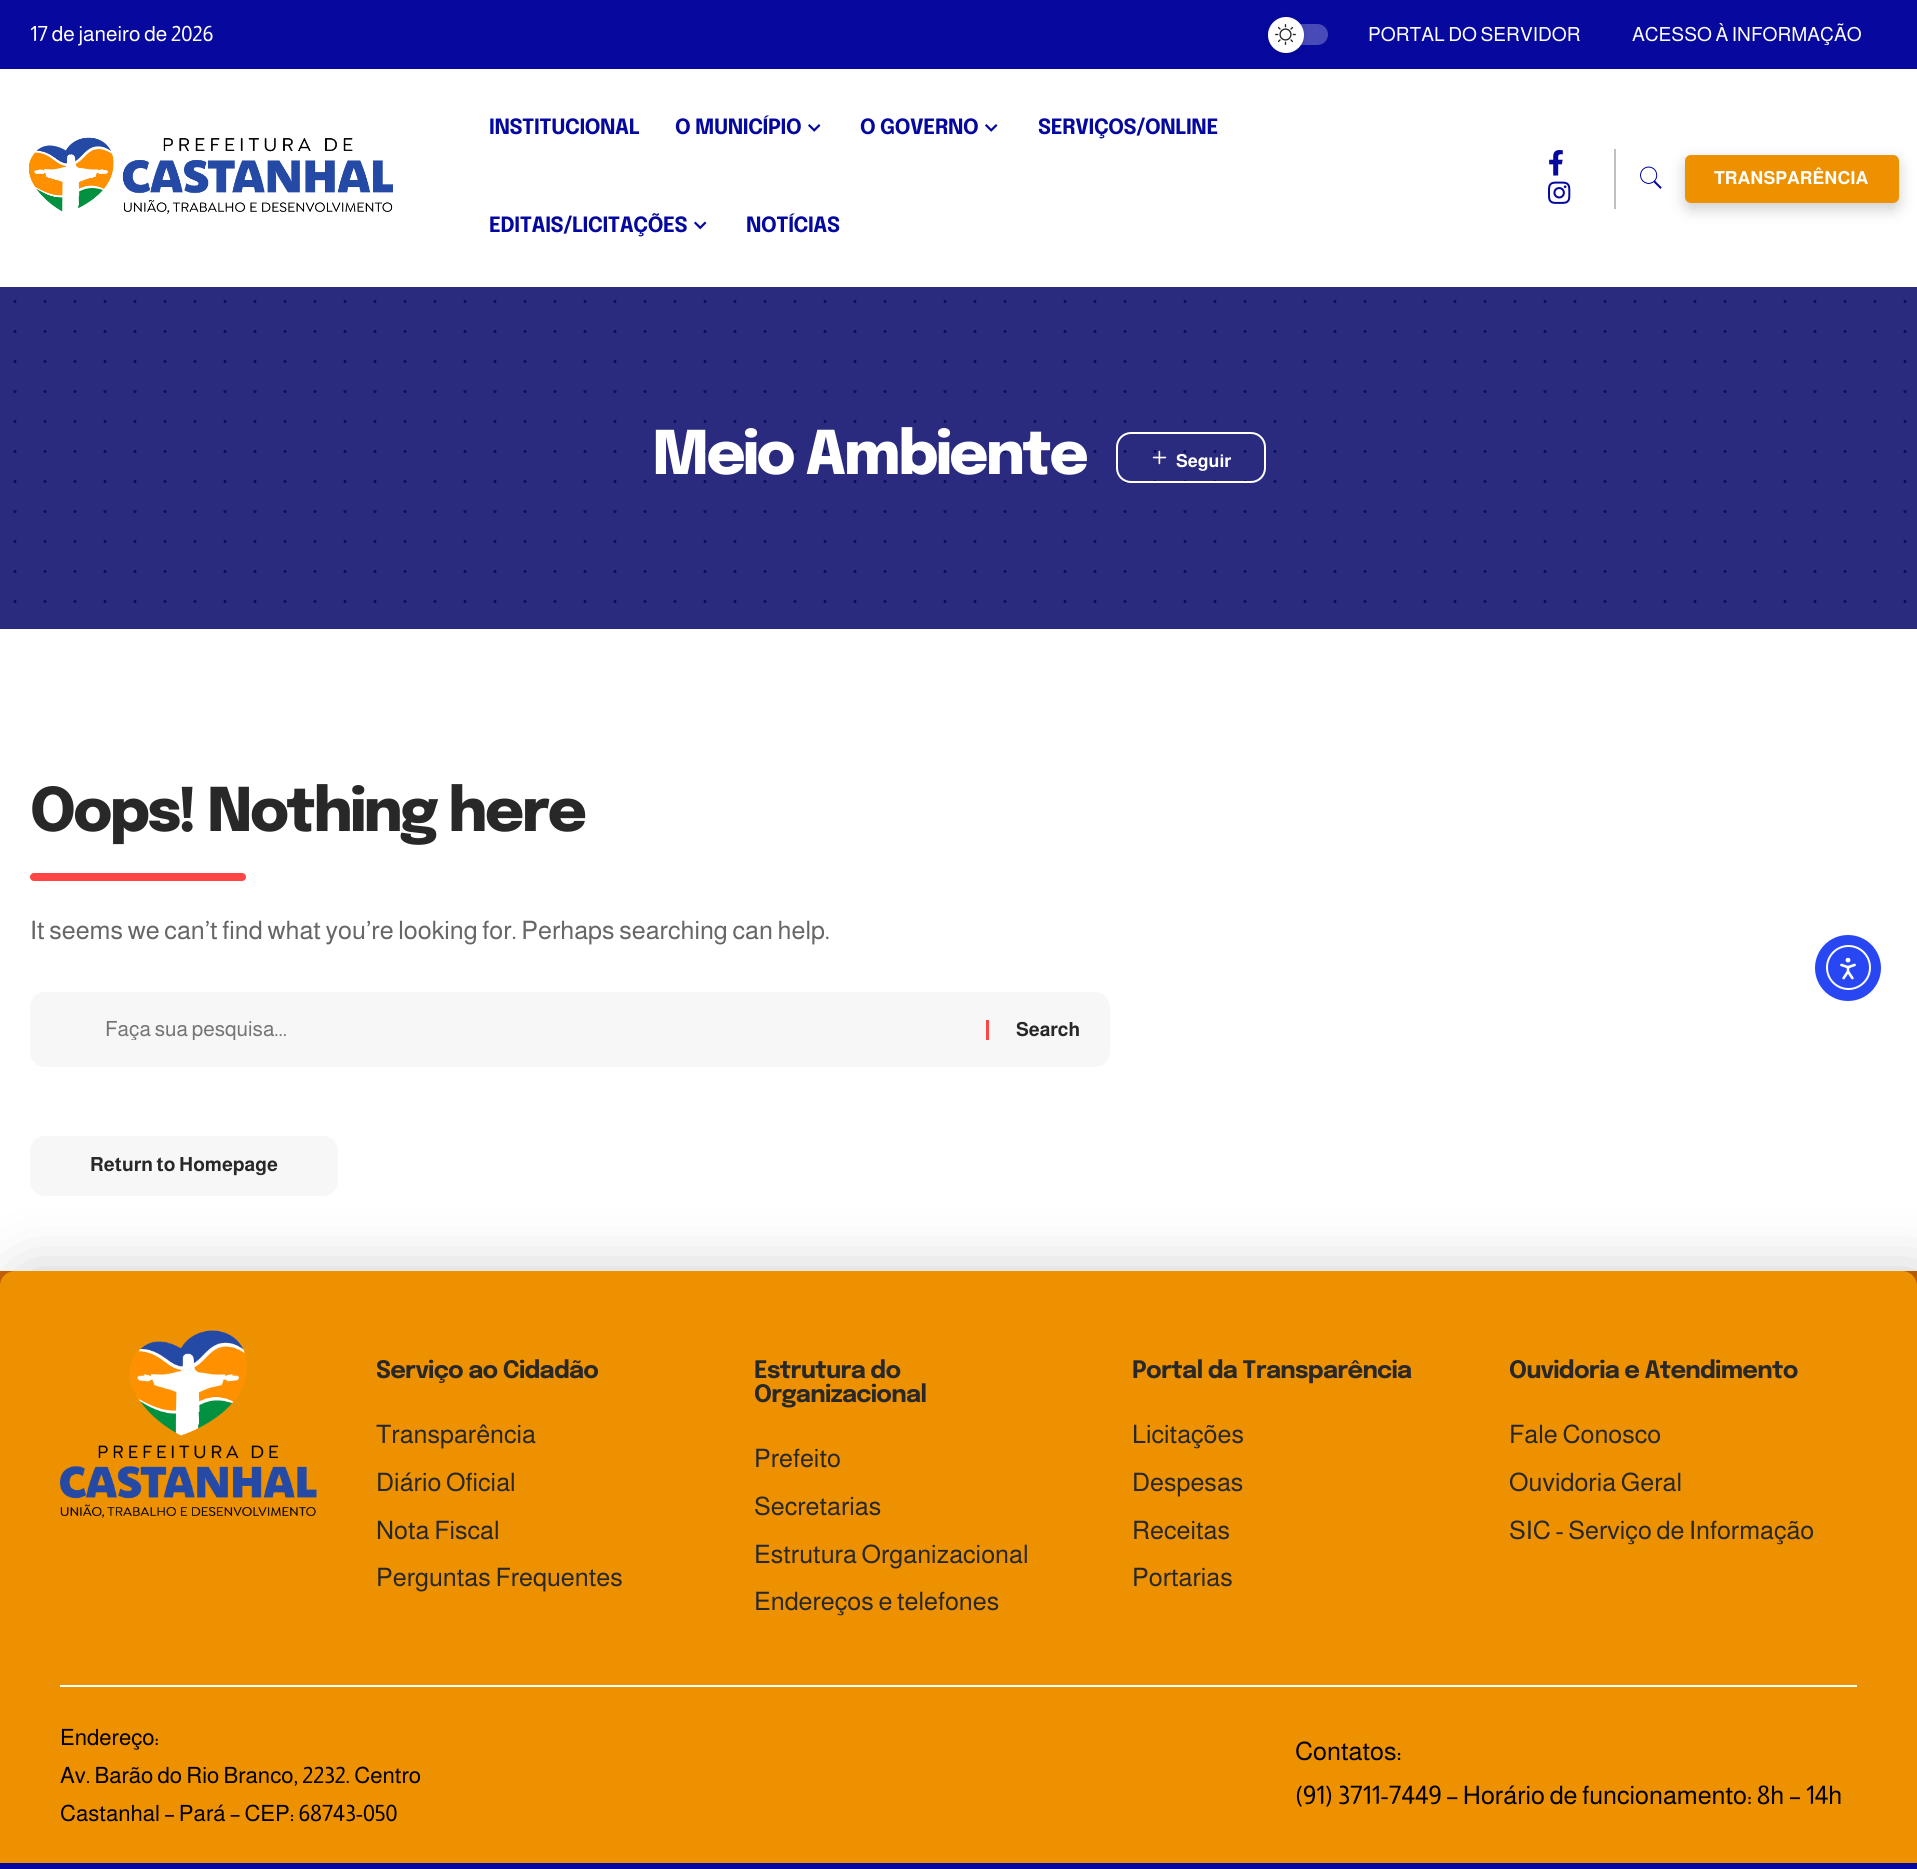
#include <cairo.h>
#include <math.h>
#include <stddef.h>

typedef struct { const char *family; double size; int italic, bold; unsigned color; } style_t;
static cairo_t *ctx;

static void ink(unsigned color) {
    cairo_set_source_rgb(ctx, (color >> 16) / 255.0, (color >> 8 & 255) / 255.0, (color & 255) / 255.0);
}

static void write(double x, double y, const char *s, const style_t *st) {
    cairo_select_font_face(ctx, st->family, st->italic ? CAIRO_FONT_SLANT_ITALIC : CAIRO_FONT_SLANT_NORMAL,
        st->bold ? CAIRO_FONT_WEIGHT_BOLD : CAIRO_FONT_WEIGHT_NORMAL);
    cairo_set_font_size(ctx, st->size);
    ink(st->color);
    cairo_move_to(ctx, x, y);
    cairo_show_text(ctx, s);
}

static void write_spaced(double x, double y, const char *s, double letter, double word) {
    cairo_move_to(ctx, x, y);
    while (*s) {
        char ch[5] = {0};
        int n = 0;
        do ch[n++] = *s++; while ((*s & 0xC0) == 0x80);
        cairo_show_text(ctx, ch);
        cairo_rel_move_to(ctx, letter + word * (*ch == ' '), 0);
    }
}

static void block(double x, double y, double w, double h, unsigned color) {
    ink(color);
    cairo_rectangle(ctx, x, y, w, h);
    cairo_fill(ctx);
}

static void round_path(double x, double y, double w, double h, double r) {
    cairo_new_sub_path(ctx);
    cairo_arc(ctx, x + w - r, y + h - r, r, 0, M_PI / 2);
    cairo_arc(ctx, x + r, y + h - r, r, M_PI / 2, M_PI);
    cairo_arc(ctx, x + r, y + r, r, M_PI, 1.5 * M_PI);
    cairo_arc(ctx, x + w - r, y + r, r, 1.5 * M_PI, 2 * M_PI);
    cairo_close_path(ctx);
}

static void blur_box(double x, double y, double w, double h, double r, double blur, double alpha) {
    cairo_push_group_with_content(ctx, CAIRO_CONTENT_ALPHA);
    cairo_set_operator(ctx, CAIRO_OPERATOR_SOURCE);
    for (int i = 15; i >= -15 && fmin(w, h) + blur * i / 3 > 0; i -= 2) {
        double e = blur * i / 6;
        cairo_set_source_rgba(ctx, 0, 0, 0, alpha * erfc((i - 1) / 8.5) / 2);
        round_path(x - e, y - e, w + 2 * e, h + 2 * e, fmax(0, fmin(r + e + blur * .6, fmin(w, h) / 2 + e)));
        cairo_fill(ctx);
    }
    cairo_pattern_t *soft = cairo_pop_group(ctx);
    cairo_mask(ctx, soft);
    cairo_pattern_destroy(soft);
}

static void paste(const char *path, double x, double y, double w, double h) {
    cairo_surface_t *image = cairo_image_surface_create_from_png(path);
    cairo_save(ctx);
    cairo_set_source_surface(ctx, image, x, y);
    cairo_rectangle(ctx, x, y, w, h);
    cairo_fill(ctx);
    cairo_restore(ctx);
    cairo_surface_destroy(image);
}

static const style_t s1 = {"Almarai", 21, 0, 0, 0xffffff};
static const style_t s2 = {"Almarai", 19.5, 0, 0, 0xffffff};
static const style_t s3 = {"Almarai", 18, 0, 1, 0xffffff};
static const style_t s4 = {"Almarai", 25.5, 0, 0, 0x666666};
static const style_t s5 = {"Almarai", 21, 0, 0, 0x757575};
static const style_t s6 = {"Almarai", 19.5, 0, 1, 0x282828};
static const style_t s7 = {"Almarai", 25.5, 0, 0, 0x282828};
static const style_t s8 = {"Almarai", 22.5, 0, 0, 0x020101};
static const style_t s9 = {"Almarai", 25.5, 0, 0, 0x020101};

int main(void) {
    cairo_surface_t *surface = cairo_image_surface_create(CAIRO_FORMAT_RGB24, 1917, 1869);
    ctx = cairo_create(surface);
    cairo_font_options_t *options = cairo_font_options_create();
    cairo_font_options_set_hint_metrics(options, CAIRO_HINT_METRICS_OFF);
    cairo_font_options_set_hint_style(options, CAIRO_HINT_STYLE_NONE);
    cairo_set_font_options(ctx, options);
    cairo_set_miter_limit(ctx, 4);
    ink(0xffffff);
    cairo_paint(ctx);
    block(0, 0, 1917, 69, 0x06089e);
    write(30, 41, "17 de janeiro de 2026", &s1);
    ink(0x484ab8);
    round_path(1268, 24, 60, 21, 10.5);
    cairo_fill(ctx);
    ink(0x000000);
    blur_box(1268, 18, 36, 36, 18, 3, 0.12);
    ink(0xffffff);
    cairo_arc(ctx, 1286, 35, 18, 0, 2 * M_PI);
    cairo_fill(ctx);
    paste("pic1.png", 1275, 24, 21, 21);
    write(1368, 41, "PORTAL DO SERVIDOR", &s2);
    write(1632, 41, "ACESSO À INFORMAÇÃO", &s2);
    paste("pic2.png", 29, 137, 364, 77);
    cairo_select_font_face(ctx, "Epilogue", CAIRO_FONT_SLANT_NORMAL, CAIRO_FONT_WEIGHT_BOLD);
    cairo_set_font_size(ctx, 21);
    ink(0x05089e);
    write_spaced(489, 134, "INSTITUCIONAL", -0.4, 0);
    write_spaced(675, 134, "O MUNICÍPIO", -0.4, 0);
    paste("pic3.png", 808, 124, 13, 8);
    write_spaced(860, 134, "O GOVERNO", -0.4, 0);
    paste("pic3.png", 985, 124, 13, 8);
    write_spaced(1038, 134, "SERVIÇOS/ONLINE", -0.4, 0);
    write_spaced(489, 232, "EDITAIS/LICITAÇÕES", -0.4, 0);
    paste("pic4.png", 694, 221, 13, 9);
    write_spaced(746, 232, "NOTÍCIAS", -0.4, 0);
    block(1614, 149, 2, 60, 0xc0c0c0);
    paste("pic5.png", 1549, 150, 14, 26);
    paste("pic6.png", 1548, 181, 23, 23);
    paste("pic7.png", 1640, 166, 22, 23);
    ink(0x000000);
    blur_box(1685, 161, 214, 48, 6, 7.5, 0.2);
    ink(0xee9100);
    round_path(1685, 155, 214, 48, 6);
    cairo_fill(ctx);
    write(1714, 184, "TRANSPARÊNCIA", &s3);
    block(0, 287, 1917, 342, 0x2a2b7e);
    cairo_new_path(ctx);
    cairo_move_to(ctx, 15, 301.5);
    cairo_line_to(ctx, 1905.3, 301.5);
    ink(0x0a0b5e);
    cairo_set_line_width(ctx, 3);
    cairo_set_line_cap(ctx, CAIRO_LINE_CAP_ROUND);
    cairo_set_dash(ctx, (double[]){0, 30}, 2, 0);
    cairo_stroke(ctx);
    cairo_new_path(ctx);
    cairo_move_to(ctx, 15, 331.5);
    cairo_line_to(ctx, 1905.3, 331.5);
    cairo_stroke(ctx);
    cairo_new_path(ctx);
    cairo_move_to(ctx, 15, 361.5);
    cairo_line_to(ctx, 1905.3, 361.5);
    cairo_stroke(ctx);
    cairo_new_path(ctx);
    cairo_move_to(ctx, 15, 391.5);
    cairo_line_to(ctx, 1905.3, 391.5);
    cairo_stroke(ctx);
    cairo_new_path(ctx);
    cairo_move_to(ctx, 15, 421.5);
    cairo_line_to(ctx, 1905.3, 421.5);
    cairo_stroke(ctx);
    cairo_new_path(ctx);
    cairo_move_to(ctx, 15, 451.5);
    cairo_line_to(ctx, 1905.3, 451.5);
    cairo_stroke(ctx);
    cairo_new_path(ctx);
    cairo_move_to(ctx, 15, 481.5);
    cairo_line_to(ctx, 1905.3, 481.5);
    cairo_stroke(ctx);
    cairo_new_path(ctx);
    cairo_move_to(ctx, 15, 511.5);
    cairo_line_to(ctx, 1905.3, 511.5);
    cairo_stroke(ctx);
    cairo_new_path(ctx);
    cairo_move_to(ctx, 15, 541.5);
    cairo_line_to(ctx, 1905.3, 541.5);
    cairo_stroke(ctx);
    cairo_new_path(ctx);
    cairo_move_to(ctx, 15, 571.5);
    cairo_line_to(ctx, 1905.3, 571.5);
    cairo_stroke(ctx);
    cairo_new_path(ctx);
    cairo_move_to(ctx, 15, 601.5);
    cairo_line_to(ctx, 1905.3, 601.5);
    cairo_stroke(ctx);
    cairo_select_font_face(ctx, "Epilogue ExtraBold", CAIRO_FONT_SLANT_NORMAL, CAIRO_FONT_WEIGHT_NORMAL);
    cairo_set_font_size(ctx, 60);
    ink(0xffffff);
    write_spaced(652, 474, "Meio Ambiente", -2.6, 0);
    round_path(1117, 433, 148, 49, 14);
    cairo_set_line_width(ctx, 2);
    cairo_set_line_cap(ctx, CAIRO_LINE_CAP_BUTT);
    cairo_set_dash(ctx, NULL, 0, 0);
    cairo_stroke(ctx);
    paste("pic8.png", 1152, 450, 15, 15);
    write(1176, 467, "Seguir", &s3);
    cairo_select_font_face(ctx, "Epilogue ExtraBold", CAIRO_FONT_SLANT_NORMAL, CAIRO_FONT_WEIGHT_NORMAL);
    cairo_set_font_size(ctx, 60);
    ink(0x282828);
    write_spaced(30, 831, "Oops! Nothing here", -2.6, 0);
    ink(0xff4545);
    round_path(30, 873, 216, 8, 4);
    cairo_fill(ctx);
    write(30, 939, "It seems we can’t find what you’re looking for. Perhaps searching can help.", &s4);
    ink(0xf7f7f7);
    round_path(30, 992, 1080, 75, 15);
    cairo_fill(ctx);
    cairo_save(ctx);
    cairo_rectangle(ctx, 105, 1016, 852, 24);
    cairo_clip(ctx);
    write(105, 1036, "Faça sua pesquisa...", &s5);
    cairo_restore(ctx);
    block(986, 1020, 3, 20, 0xff4545);
    write(1016, 1036, "Search", &s6);
    block(0, 1271, 1917, 15, 0xc96406);
    ink(0x000000);
    blur_box(15, 1271, 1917, 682, 15, 30, 0.2);
    ink(0xf7f7f7);
    round_path(30, 1136, 308, 60, 15);
    cairo_fill(ctx);
    write(90, 1171, "Return to Homepage", &s6);
    ink(0xee9100);
    round_path(0, 1271, 1917, 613, 15);
    cairo_fill(ctx);
    paste("pic9.png", 60, 1330, 257, 188);
    cairo_select_font_face(ctx, "Epilogue", CAIRO_FONT_SLANT_NORMAL, CAIRO_FONT_WEIGHT_BOLD);
    cairo_set_font_size(ctx, 24);
    ink(0x282828);
    write_spaced(376, 1378, "Serviço ao Cidadão", -0.75, 0);
    write(376, 1443, "Transparência", &s7);
    write(376, 1491, "Diário Oficial", &s7);
    write(376, 1539, "Nota Fiscal", &s7);
    write(376, 1586, "Perguntas Frequentes", &s7);
    cairo_select_font_face(ctx, "Epilogue", CAIRO_FONT_SLANT_NORMAL, CAIRO_FONT_WEIGHT_BOLD);
    cairo_set_font_size(ctx, 24);
    write_spaced(754, 1378, "Estrutura do", -0.75, 0);
    write_spaced(754, 1402, "Organizacional", -0.75, 0);
    write(754, 1467, "Prefeito", &s7);
    write(754, 1515, "Secretarias", &s7);
    write(754, 1563, "Estrutura Organizacional", &s7);
    write(754, 1610, "Endereços e telefones", &s7);
    cairo_select_font_face(ctx, "Epilogue", CAIRO_FONT_SLANT_NORMAL, CAIRO_FONT_WEIGHT_BOLD);
    cairo_set_font_size(ctx, 24);
    write_spaced(1132, 1378, "Portal da Transparência", -0.75, 0);
    write(1132, 1443, "Licitações", &s7);
    write(1132, 1491, "Despesas", &s7);
    write(1132, 1539, "Receitas", &s7);
    write(1132, 1586, "Portarias", &s7);
    cairo_select_font_face(ctx, "Epilogue", CAIRO_FONT_SLANT_NORMAL, CAIRO_FONT_WEIGHT_BOLD);
    cairo_set_font_size(ctx, 24);
    write_spaced(1509, 1378, "Ouvidoria e Atendimento", -0.75, 0);
    write(1509, 1443, "Fale Conosco", &s7);
    write(1509, 1491, "Ouvidoria Geral", &s7);
    write(1509, 1539, "SIC - Serviço de Informação", &s7);
    block(60, 1685, 1797, 2, 0xffffff);
    write(60, 1745, "Endereço:", &s8);
    write(60, 1783, "Av. Barão do Rio Branco, 2232. Centro", &s8);
    write(60, 1821, "Castanhal – Pará – CEP: 68743-050", &s8);
    write(1295, 1760, "Contatos:", &s9);
    write(1295, 1804, "(91) 3711-7449 – Horário de funcionamento: 8h – 14h", &s9);
    block(0, 1863, 1917, 6, 0x05089e);
    ink(0x2847f3);
    cairo_new_path(ctx);
    cairo_arc(ctx, 1848, 968, 33, 0, 2 * M_PI);
    cairo_fill(ctx);
    cairo_arc(ctx, 1848.5, 967.5, 21.5, 0, 2 * M_PI);
    ink(0xffffff);
    cairo_stroke(ctx);
    paste("pic10.png", 1840, 957, 16, 23);
    cairo_surface_write_to_png(surface, "screenshot.png");
    cairo_font_options_destroy(options);
    cairo_destroy(ctx);
    cairo_surface_destroy(surface);
    return 0;
}
